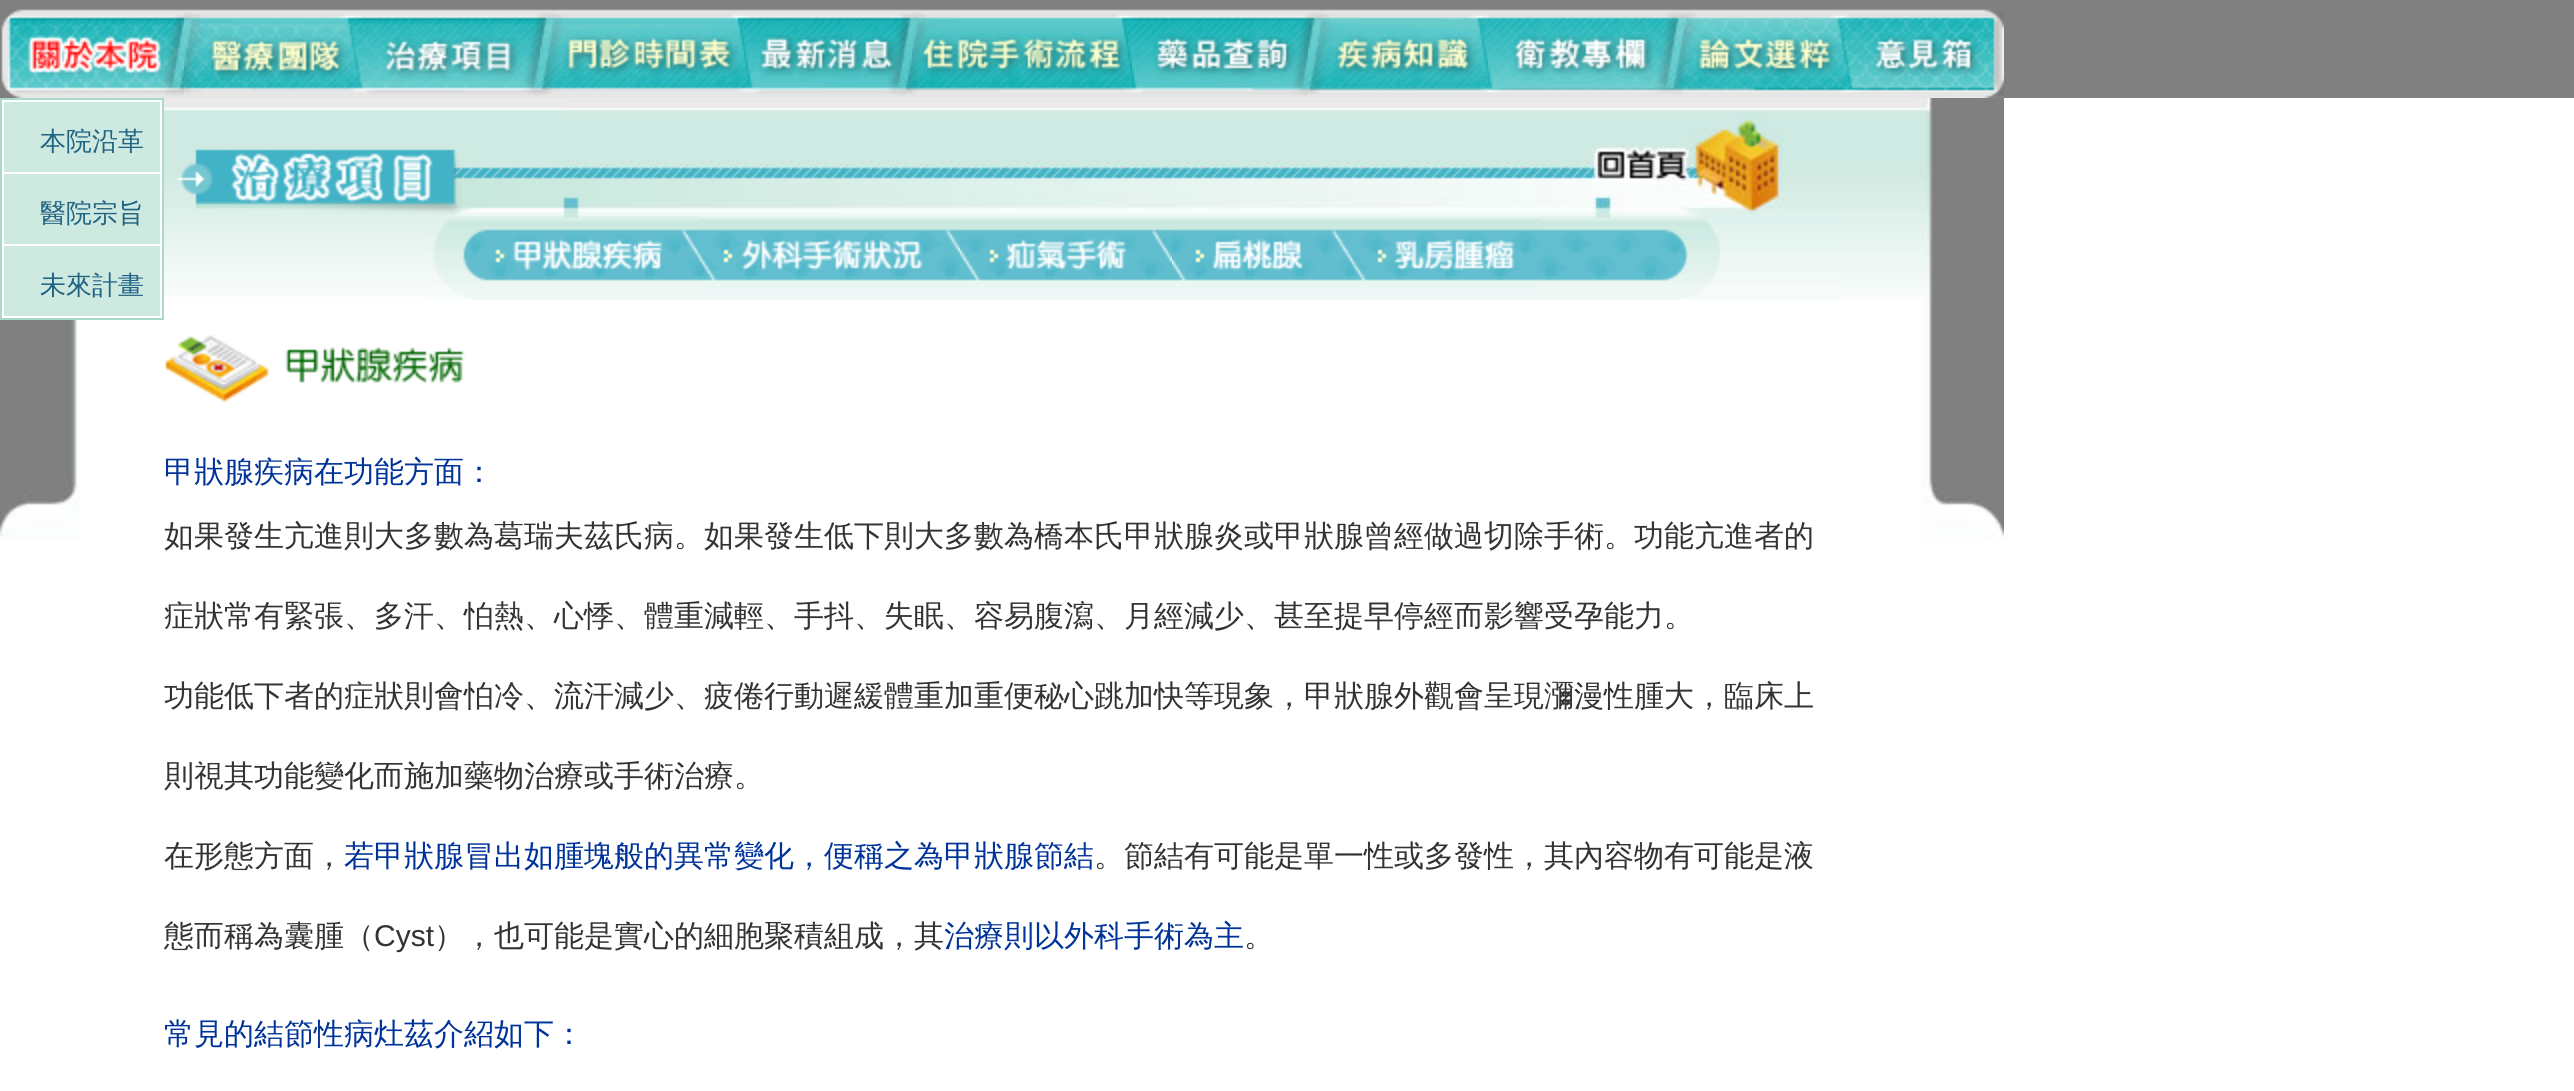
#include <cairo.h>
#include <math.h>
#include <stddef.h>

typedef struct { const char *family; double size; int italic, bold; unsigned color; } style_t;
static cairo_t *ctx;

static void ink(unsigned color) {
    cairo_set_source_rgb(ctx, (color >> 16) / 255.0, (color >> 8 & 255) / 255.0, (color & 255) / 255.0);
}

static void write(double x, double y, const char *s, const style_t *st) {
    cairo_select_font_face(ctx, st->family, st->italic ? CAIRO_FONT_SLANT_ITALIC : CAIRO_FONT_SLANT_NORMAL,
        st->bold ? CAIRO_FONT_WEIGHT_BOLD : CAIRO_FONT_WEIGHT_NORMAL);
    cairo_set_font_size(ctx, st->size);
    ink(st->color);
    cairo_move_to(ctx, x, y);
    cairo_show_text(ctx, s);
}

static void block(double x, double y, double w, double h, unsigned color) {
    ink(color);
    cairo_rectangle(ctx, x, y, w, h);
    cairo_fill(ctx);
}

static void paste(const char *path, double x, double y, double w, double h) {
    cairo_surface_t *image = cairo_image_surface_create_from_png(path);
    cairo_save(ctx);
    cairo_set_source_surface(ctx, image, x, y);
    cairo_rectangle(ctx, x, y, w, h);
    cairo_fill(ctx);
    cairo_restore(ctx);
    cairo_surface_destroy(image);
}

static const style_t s1 = {"WenQuanYi Zen Hei Medium", 26, 0, 0, 0x206282};
static const style_t s2 = {"WenQuanYi Zen Hei Medium", 30, 0, 0, 0x003399};
static const style_t s3 = {"WenQuanYi Zen Hei Medium", 30, 0, 0, 0x333333};
static const style_t s4 = {"Liberation Sans", 30, 0, 0, 0x333333};

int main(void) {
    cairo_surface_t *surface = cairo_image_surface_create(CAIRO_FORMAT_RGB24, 2574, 1091);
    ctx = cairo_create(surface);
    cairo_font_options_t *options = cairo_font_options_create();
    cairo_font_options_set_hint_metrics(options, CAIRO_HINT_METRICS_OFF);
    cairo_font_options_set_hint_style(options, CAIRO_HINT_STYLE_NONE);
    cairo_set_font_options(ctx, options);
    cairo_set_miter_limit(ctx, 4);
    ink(0x808080);
    cairo_paint(ctx);
    paste("pic1.png", 1, 9, 183, 89);
    paste("pic2.png", 184, 9, 178, 89);
    paste("pic3.png", 362, 9, 178, 89);
    paste("pic4.png", 540, 9, 198, 89);
    paste("pic5.png", 738, 9, 174, 89);
    paste("pic6.png", 912, 9, 220, 89);
    paste("pic7.png", 1132, 9, 176, 89);
    paste("pic8.png", 1308, 9, 180, 89);
    paste("pic9.png", 1488, 9, 194, 89);
    paste("pic10.png", 1682, 9, 164, 89);
    paste("pic11.png", 1846, 9, 158, 89);
    block(0, 98, 2574, 993, 0xffffff);
    block(0, 98, 164, 222, 0xa9daca);
    block(2, 100, 160, 218, 0xffffff);
    block(4, 102, 156, 70, 0xcee9e0);
    write(40, 150, "本院沿革", &s1);
    block(4, 174, 156, 70, 0xcee9e0);
    write(40, 222, "醫院宗旨", &s1);
    block(4, 246, 156, 70, 0xcee9e0);
    write(40, 294, "未來計畫", &s1);
    paste("pic12.png", 164, 98, 402, 118);
    paste("pic13.png", 566, 98, 402, 118);
    paste("pic14.png", 968, 98, 608, 118);
    paste("pic15.png", 1576, 98, 264, 118);
    paste("pic16.png", 1840, 98, 164, 202);
    paste("pic17.png", 164, 216, 266, 81);
    paste("pic18.png", 430, 216, 268, 84);
    paste("pic19.png", 698, 216, 262, 84);
    paste("pic20.png", 960, 216, 212, 84);
    paste("pic21.png", 1172, 216, 176, 84);
    paste("pic22.png", 1348, 216, 192, 84);
    paste("pic23.png", 1540, 216, 300, 84);
    paste("pic24.png", 0, 320, 80, 220);
    paste("pic25.png", 1921, 300, 83, 238);
    paste("pic26.png", 165, 334, 300, 69);
    write(164, 482, "甲狀腺疾病在功能方面：", &s2);
    write(164, 546, "如果發生亢進則大多數為葛瑞夫茲氏病。如果發生低下則大多數為橋本氏甲狀腺炎或甲狀腺曾經做過切除手術。功能亢進者的", &s3);
    write(164, 626, "症狀常有緊張、多汗、怕熱、心悸、體重減輕、手抖、失眠、容易腹瀉、月經減少、甚至提早停經而影響受孕能力。", &s3);
    write(164, 706, "功能低下者的症狀則會怕冷、流汗減少、疲倦行動遲緩體重加重便秘心跳加快等現象，甲狀腺外觀會呈現瀰漫性腫大，臨床上", &s3);
    write(164, 786, "則視其功能變化而施加藥物治療或手術治療。", &s3);
    write(164, 866, "在形態方面，", &s3);
    write(344, 866, "若甲狀腺冒出如腫塊般的異常變化，便稱之為甲狀腺節結", &s2);
    write(1094, 866, "。節結有可能是單一性或多發性，其內容物有可能是液", &s3);
    write(164, 946, "態而稱為囊腫（", &s3);
    write(374, 946, "Cyst", &s4);
    write(434, 946, "），也可能是實心的細胞聚積組成，其", &s3);
    write(944, 946, "治療則以外科手術為主", &s2);
    write(1244, 946, "。", &s3);
    write(164, 1044, "常見的結節性病灶茲介紹如下：", &s2);
    cairo_surface_write_to_png(surface, "screenshot.png");
    cairo_font_options_destroy(options);
    cairo_destroy(ctx);
    cairo_surface_destroy(surface);
    return 0;
}
